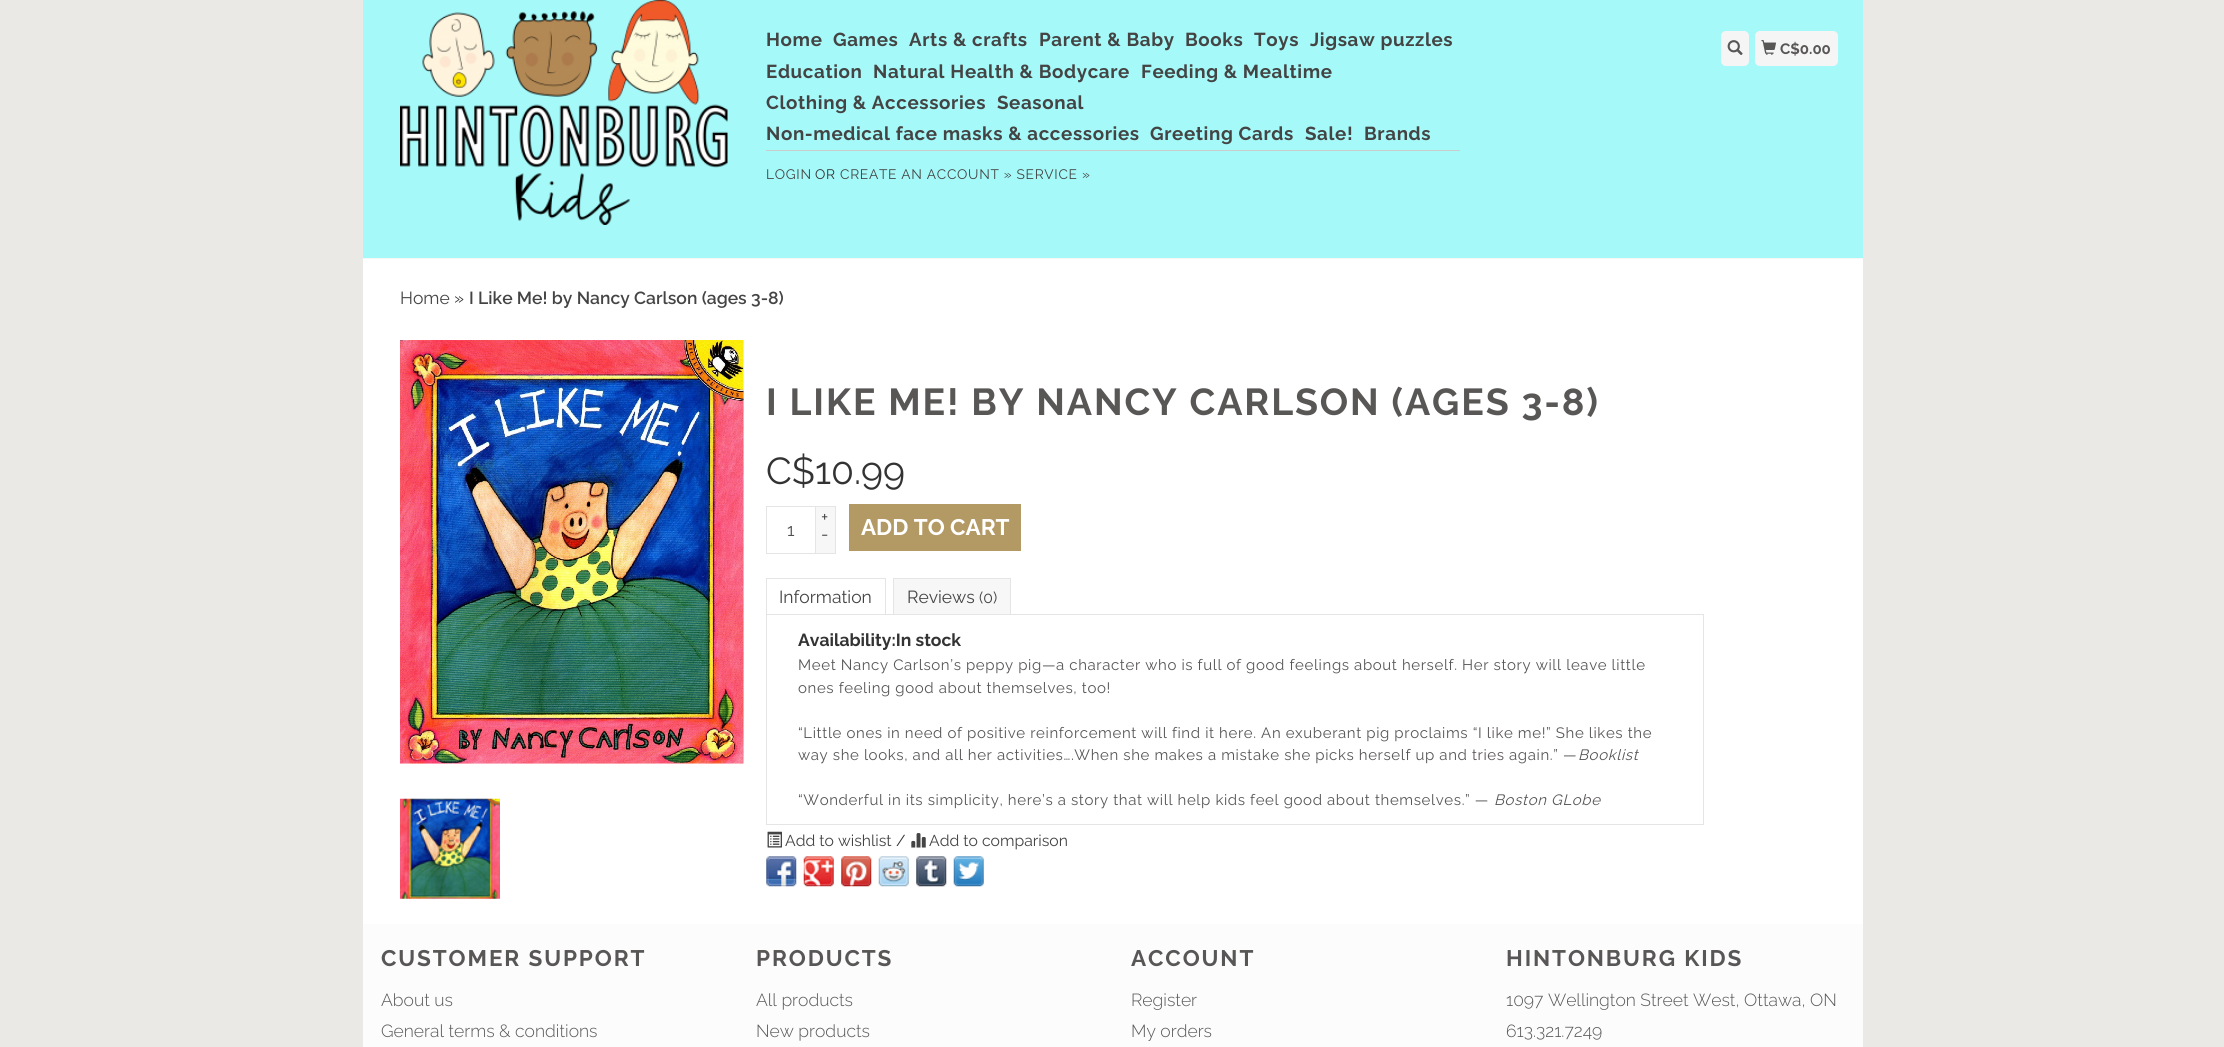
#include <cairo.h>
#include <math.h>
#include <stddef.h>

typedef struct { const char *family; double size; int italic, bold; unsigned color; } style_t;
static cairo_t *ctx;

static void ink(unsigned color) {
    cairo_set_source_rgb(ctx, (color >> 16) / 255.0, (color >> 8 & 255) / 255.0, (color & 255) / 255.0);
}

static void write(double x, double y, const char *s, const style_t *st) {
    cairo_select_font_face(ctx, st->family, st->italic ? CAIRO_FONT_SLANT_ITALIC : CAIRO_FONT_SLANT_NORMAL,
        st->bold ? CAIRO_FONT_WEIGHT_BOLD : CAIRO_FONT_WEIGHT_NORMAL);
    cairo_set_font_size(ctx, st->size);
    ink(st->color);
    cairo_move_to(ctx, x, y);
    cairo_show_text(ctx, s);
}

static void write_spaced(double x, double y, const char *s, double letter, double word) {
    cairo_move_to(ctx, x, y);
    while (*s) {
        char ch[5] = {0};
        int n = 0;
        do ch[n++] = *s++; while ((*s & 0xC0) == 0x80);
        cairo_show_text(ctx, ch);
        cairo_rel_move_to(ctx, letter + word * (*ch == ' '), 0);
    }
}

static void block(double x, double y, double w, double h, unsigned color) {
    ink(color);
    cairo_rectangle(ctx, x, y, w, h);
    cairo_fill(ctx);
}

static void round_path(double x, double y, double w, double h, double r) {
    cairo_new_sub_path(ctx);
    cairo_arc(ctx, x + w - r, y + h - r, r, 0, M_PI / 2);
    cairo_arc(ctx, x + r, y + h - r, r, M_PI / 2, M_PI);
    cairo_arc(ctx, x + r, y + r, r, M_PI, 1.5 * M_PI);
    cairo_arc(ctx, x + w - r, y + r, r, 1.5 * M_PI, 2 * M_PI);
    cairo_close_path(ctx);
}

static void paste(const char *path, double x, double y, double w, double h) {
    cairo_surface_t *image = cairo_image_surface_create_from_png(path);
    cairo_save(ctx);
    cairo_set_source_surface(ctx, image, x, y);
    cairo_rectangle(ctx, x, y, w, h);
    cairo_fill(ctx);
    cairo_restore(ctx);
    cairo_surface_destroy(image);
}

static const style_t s1 = {"Raleway", 15, 0, 1, 0x595656};
static const style_t s2 = {"Raleway", 17.5, 0, 0, 0x444444};
static const style_t s3 = {"Raleway", 17.5, 0, 0, 0x333333};
static const style_t s4 = {"Raleway SemiBold", 17.5, 0, 0, 0x444444};
static const style_t s5 = {"Raleway", 37.5, 0, 0, 0x333333};
static const style_t s6 = {"Raleway", 17.5, 0, 0, 0x515050};
static const style_t s7 = {"Raleway", 22.5, 0, 1, 0xffffff};
static const style_t s8 = {"Raleway", 15.75, 0, 0, 0x444444};
static const style_t s9 = {"Raleway", 17.5, 0, 1, 0x333333};
static const style_t s10 = {"Raleway", 15.75, 0, 0, 0x333333};
static const style_t s11 = {"Raleway Light", 17.5, 0, 0, 0x595656};

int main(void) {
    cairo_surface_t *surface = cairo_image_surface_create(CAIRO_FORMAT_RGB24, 2224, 1047);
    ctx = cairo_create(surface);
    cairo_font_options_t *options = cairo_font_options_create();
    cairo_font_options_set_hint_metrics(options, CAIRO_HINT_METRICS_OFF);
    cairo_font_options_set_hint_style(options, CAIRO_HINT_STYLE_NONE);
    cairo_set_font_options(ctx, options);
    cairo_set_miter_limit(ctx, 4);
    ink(0xeae9e5);
    cairo_paint(ctx);
    block(363, 0, 1500, 258, 0xa6f9f9);
    block(363, 258, 1500, 1, 0xf7f7f7);
    paste("pic1.png", 400, 0, 328, 225);
    block(766, 150, 694, 1, 0xcccccc);
    cairo_select_font_face(ctx, "Raleway", CAIRO_FONT_SLANT_NORMAL, CAIRO_FONT_WEIGHT_BOLD);
    cairo_set_font_size(ctx, 18.75);
    ink(0x444444);
    write_spaced(766, 46, "Home", 0.62, 0);
    write_spaced(833, 46, "Games", 0.62, 0);
    write_spaced(909, 46, "Arts & crafts", 0.62, 0);
    write_spaced(1039, 46, "Parent & Baby", 0.62, 0);
    write_spaced(1185, 46, "Books", 0.62, 0);
    write_spaced(1254, 46, "Toys", 0.62, 0);
    write_spaced(1310, 46, "Jigsaw puzzles", 0.62, 0);
    write_spaced(766, 78, "Education", 0.62, 0);
    write_spaced(873, 78, "Natural Health & Bodycare", 0.62, 0);
    write_spaced(1141, 78, "Feeding & Mealtime", 0.62, 0);
    write_spaced(766, 109, "Clothing & Accessories", 0.62, 0);
    write_spaced(997, 109, "Seasonal", 0.62, 0);
    write_spaced(766, 140, "Non-medical face masks & accessories", 0.62, 0);
    write_spaced(1150, 140, "Greeting Cards", 0.62, 0);
    write_spaced(1305, 140, "Sale!", 0.62, 0);
    write_spaced(1364, 140, "Brands", 0.62, 0);
    cairo_select_font_face(ctx, "Raleway", CAIRO_FONT_SLANT_NORMAL, CAIRO_FONT_WEIGHT_NORMAL);
    cairo_set_font_size(ctx, 13.75);
    write_spaced(766, 179, "LOGIN", 0.7, 0);
    ink(0x333333);
    write_spaced(815, 179, "OR", 0.7, 0);
    ink(0x444444);
    write_spaced(840, 179, "CREATE AN ACCOUNT » SERVICE »", 0.7, 0);
    ink(0xf5f5f5);
    round_path(1721, 31, 28, 35, 5);
    cairo_fill(ctx);
    paste("pic2.png", 1727, 40, 16, 15);
    round_path(1755, 31, 83, 35, 5);
    cairo_fill(ctx);
    paste("pic3.png", 1761, 40, 15, 15);
    write(1780, 54, "C$0.00", &s1);
    block(363, 259, 1500, 665, 0xffffff);
    write(400, 304, "Home", &s2);
    write(454, 304, "»", &s3);
    write(469, 304, "I Like Me! by Nancy Carlson (ages 3-8)", &s4);
    paste("pic4.png", 400, 340, 344, 424);
    paste("pic5.png", 400, 798, 100, 101);
    cairo_select_font_face(ctx, "Raleway", CAIRO_FONT_SLANT_NORMAL, CAIRO_FONT_WEIGHT_BOLD);
    cairo_set_font_size(ctx, 37.5);
    ink(0x595656);
    write_spaced(766, 415, "I LIKE ME! BY NANCY CARLSON (AGES 3-8)", 1.9, 0);
    write(766, 484, "C$10.99", &s5);
    cairo_rectangle(ctx, 766.5, 506.5, 49, 47);
    ink(0xe5e5e5);
    cairo_set_line_width(ctx, 1);
    cairo_stroke(ctx);
    write(787, 536, "1", &s6);
    block(816, 507, 19, 46, 0xf7f7f7);
    block(816, 506, 20, 1, 0xe5e5e5);
    block(835, 506, 1, 48, 0xe5e5e5);
    block(816, 553, 20, 1, 0xe5e5e5);
    write(821, 523, "+", &s2);
    write(821, 540, "-", &s2);
    block(849, 504, 172, 47, 0xb39964);
    write(861, 535, "ADD TO CART", &s7);
    block(766, 578, 120, 1, 0xe5e5e5);
    block(885, 578, 1, 37, 0xe5e5e5);
    block(766, 578, 1, 37, 0xe5e5e5);
    write(779, 603, "Information", &s2);
    block(894, 579, 116, 35, 0xf7f7f7);
    block(893, 578, 118, 1, 0xe5e5e5);
    block(1010, 578, 1, 37, 0xe5e5e5);
    block(893, 578, 1, 37, 0xe5e5e5);
    write(907, 603, "Reviews", &s2);
    write(979, 603, "(0)", &s8);
    cairo_rectangle(ctx, 766.5, 614.5, 937, 210);
    ink(0xe5e5e5);
    cairo_stroke(ctx);
    write(798, 646, "Availability:In stock", &s9);
    cairo_select_font_face(ctx, "Raleway", CAIRO_FONT_SLANT_NORMAL, CAIRO_FONT_WEIGHT_NORMAL);
    cairo_set_font_size(ctx, 15);
    ink(0x595656);
    write_spaced(798, 670, "Meet Nancy Carlson’s peppy pig—a character who is full of good feelings about herself. Her story will leave little", 0.62, 0);
    write_spaced(798, 693, "ones feeling good about themselves, too!", 0.62, 0);
    write_spaced(798, 738, "“Little ones in need of positive reinforcement will find it here. An exuberant pig proclaims “I like me!” She likes the", 0.62, 0);
    write_spaced(798, 760, "way she looks, and all her activities….When she makes a mistake she picks herself up and tries again.” —", 0.62, 0);
    cairo_select_font_face(ctx, "Raleway", CAIRO_FONT_SLANT_ITALIC, CAIRO_FONT_WEIGHT_NORMAL);
    write_spaced(1578, 760, "Booklist", 0.62, 0);
    cairo_select_font_face(ctx, "Raleway", CAIRO_FONT_SLANT_NORMAL, CAIRO_FONT_WEIGHT_NORMAL);
    write_spaced(798, 805, "“Wonderful in its simplicity, here’s a story that will help kids feel good about themselves.” —", 0.62, 0);
    cairo_select_font_face(ctx, "Raleway", CAIRO_FONT_SLANT_ITALIC, CAIRO_FONT_WEIGHT_NORMAL);
    write_spaced(1494, 805, "Boston GLobe", 0.62, 0);
    paste("pic6.png", 767, 831, 15, 17);
    write(785, 846, "Add to wishlist", &s8);
    write(896, 846, "/", &s10);
    paste("pic7.png", 911, 833, 15, 15);
    write(929, 846, "Add to comparison", &s8);
    paste("pic8.png", 766, 856, 31, 31);
    paste("pic9.png", 803, 856, 31, 31);
    paste("pic10.png", 841, 856, 31, 31);
    paste("pic11.png", 878, 856, 31, 31);
    paste("pic12.png", 916, 856, 31, 31);
    paste("pic13.png", 953, 856, 31, 31);
    block(363, 924, 1500, 123, 0xfcfcfc);
    cairo_select_font_face(ctx, "Raleway", CAIRO_FONT_SLANT_NORMAL, CAIRO_FONT_WEIGHT_BOLD);
    cairo_set_font_size(ctx, 22.5);
    ink(0x595656);
    write_spaced(381, 966, "CUSTOMER SUPPORT", 1.9, 0);
    write(381, 1006, "About us", &s11);
    write(381, 1037, "General terms & conditions", &s11);
    cairo_select_font_face(ctx, "Raleway", CAIRO_FONT_SLANT_NORMAL, CAIRO_FONT_WEIGHT_BOLD);
    cairo_set_font_size(ctx, 22.5);
    write_spaced(756, 966, "PRODUCTS", 1.9, 0);
    write(756, 1006, "All products", &s11);
    write(756, 1037, "New products", &s11);
    cairo_select_font_face(ctx, "Raleway", CAIRO_FONT_SLANT_NORMAL, CAIRO_FONT_WEIGHT_BOLD);
    cairo_set_font_size(ctx, 22.5);
    write_spaced(1131, 966, "ACCOUNT", 1.9, 0);
    write(1131, 1006, "Register", &s11);
    write(1131, 1037, "My orders", &s11);
    cairo_select_font_face(ctx, "Raleway", CAIRO_FONT_SLANT_NORMAL, CAIRO_FONT_WEIGHT_BOLD);
    cairo_set_font_size(ctx, 22.5);
    write_spaced(1506, 966, "HINTONBURG KIDS", 1.9, 0);
    write(1506, 1006, "1097 Wellington Street West, Ottawa, ON", &s11);
    write(1506, 1037, "613.321.7249", &s11);
    cairo_surface_write_to_png(surface, "screenshot.png");
    cairo_font_options_destroy(options);
    cairo_destroy(ctx);
    cairo_surface_destroy(surface);
    return 0;
}
